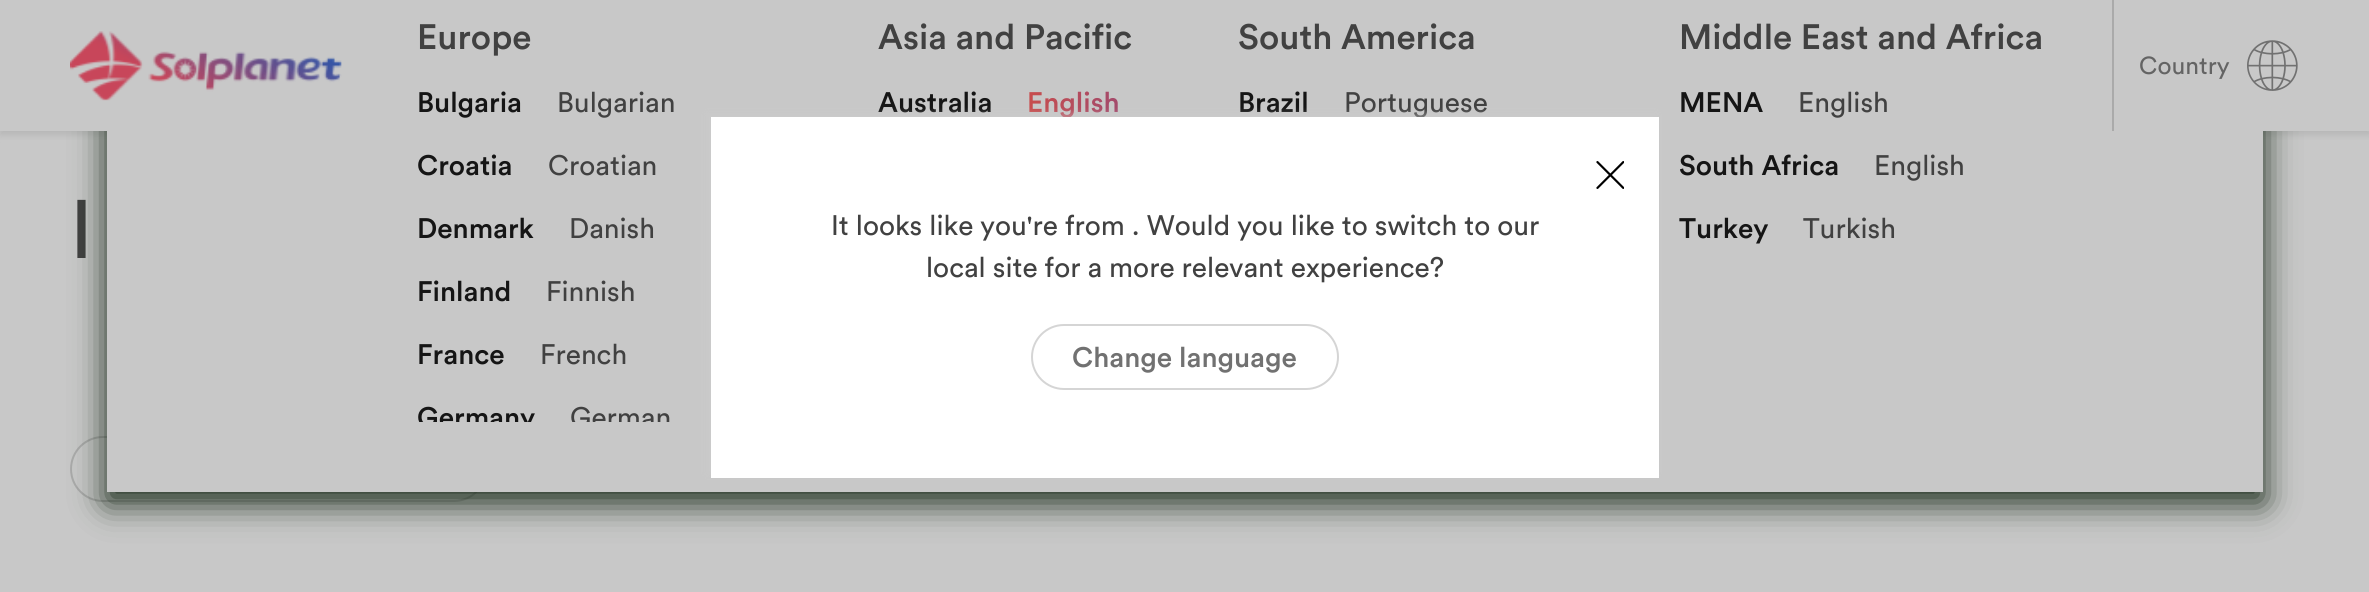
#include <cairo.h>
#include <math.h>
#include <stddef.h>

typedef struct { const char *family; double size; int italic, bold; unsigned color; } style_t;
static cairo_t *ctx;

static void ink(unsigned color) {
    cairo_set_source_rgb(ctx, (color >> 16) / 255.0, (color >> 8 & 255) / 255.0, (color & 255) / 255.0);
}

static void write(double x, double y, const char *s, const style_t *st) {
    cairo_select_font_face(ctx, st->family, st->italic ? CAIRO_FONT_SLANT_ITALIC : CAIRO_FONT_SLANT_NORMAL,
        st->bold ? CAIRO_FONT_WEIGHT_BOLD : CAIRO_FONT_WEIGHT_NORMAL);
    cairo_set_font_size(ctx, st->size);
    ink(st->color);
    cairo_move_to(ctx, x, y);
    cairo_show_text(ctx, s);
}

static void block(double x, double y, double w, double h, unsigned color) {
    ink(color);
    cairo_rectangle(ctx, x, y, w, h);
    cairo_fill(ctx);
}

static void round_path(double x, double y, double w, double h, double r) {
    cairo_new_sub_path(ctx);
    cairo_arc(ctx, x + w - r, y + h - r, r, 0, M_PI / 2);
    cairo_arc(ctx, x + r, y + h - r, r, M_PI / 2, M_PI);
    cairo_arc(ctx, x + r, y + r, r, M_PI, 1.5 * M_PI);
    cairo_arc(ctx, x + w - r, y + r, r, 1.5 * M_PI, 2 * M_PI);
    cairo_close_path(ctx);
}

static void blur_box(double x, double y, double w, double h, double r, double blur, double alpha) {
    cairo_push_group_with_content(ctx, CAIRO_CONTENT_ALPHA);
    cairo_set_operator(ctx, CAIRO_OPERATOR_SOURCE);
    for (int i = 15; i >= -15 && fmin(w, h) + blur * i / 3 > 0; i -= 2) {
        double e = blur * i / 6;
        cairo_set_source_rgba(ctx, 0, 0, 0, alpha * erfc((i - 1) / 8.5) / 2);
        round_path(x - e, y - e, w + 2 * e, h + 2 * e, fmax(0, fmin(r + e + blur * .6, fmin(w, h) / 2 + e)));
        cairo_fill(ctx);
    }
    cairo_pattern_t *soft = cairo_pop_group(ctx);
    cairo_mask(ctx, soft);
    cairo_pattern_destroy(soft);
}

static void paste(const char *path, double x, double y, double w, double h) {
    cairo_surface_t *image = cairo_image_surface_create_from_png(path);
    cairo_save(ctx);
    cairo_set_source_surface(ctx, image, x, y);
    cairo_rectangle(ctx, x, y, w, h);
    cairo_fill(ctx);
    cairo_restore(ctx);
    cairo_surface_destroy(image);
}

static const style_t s1 = {"Circular", 82, 0, 0, 0x414141};
static const style_t s2 = {"Circular Medium", 35, 0, 0, 0x414141};
static const style_t s3 = {"Circular Medium", 28, 0, 0, 0x151515};
static const style_t s4 = {"Circular", 28, 0, 0, 0x414141};
static const style_t s5 = {"Circular", 24.5, 0, 0, 0x646464};
static const style_t s6 = {"Circular Medium", 28, 0, 0, 0x717171};

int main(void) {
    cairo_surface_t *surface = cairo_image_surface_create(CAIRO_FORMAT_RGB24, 2369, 592);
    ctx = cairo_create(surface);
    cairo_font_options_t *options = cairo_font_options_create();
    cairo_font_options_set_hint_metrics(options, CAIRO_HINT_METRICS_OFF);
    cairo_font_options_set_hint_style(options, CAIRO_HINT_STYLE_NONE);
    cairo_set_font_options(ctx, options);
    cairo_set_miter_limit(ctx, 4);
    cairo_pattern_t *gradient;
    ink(0xc8c8c8);
    cairo_paint(ctx);
    write(70, 258, "I", &s1);
    round_path(71, 437, 415, 64, 32);
    ink(0xaaaaaa);
    cairo_stroke(ctx);
    ink(0xa4a4a4);
    blur_box(0, 4, 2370, 131, 0, 3.5, 0.5);
    ink(0x152715);
    blur_box(107, -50, 2156, 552, 0, 16.5, 1);
    block(0, 0, 107, 131, 0xc8c8c8);
    block(107, 0, 2156, 492, 0xc8c8c8);
    paste("pic1.png", 70, 31, 272, 70);
    block(2112, 0, 2, 131, 0xaaaaaa);
    write(417, 49, "Europe", &s2);
    write(417, 112, "Bulgaria", &s3);
    write(557, 112, "Bulgarian", &s4);
    write(417, 175, "Croatia", &s3);
    write(548, 175, "Croatian", &s4);
    write(417, 238, "Denmark", &s3);
    write(569, 238, "Danish", &s4);
    write(417, 301, "Finland", &s3);
    write(546, 301, "Finnish", &s4);
    write(417, 364, "France", &s3);
    write(540, 364, "French", &s4);
    cairo_save(ctx);
    cairo_rectangle(ctx, 177, 11, 2002, 411);
    cairo_clip(ctx);
    write(417, 427, "Germany", &s3);
    write(570, 427, "German", &s4);
    cairo_restore(ctx);
    write(878, 49, "Asia and Pacific", &s2);
    write(878, 112, "Australia", &s3);
    gradient = cairo_pattern_create_linear(1238, 102, 1027, 102);
    cairo_pattern_add_color_stop_rgba(gradient, 0, 0.455, 0.275, 0.573, 1);
    cairo_pattern_add_color_stop_rgba(gradient, 1, 0.784, 0.302, 0.302, 1);
    cairo_set_source(ctx, gradient);
    cairo_pattern_destroy(gradient);
    cairo_move_to(ctx, 1027, 112);
    cairo_show_text(ctx, "English");
    write(1238, 49, "South America", &s2);
    write(1238, 112, "Brazil", &s3);
    write(1344, 112, "Portuguese", &s4);
    write(1679, 49, "Middle East and Africa", &s2);
    write(1679, 112, "MENA", &s3);
    write(1798, 112, "English", &s4);
    write(1679, 175, "South Africa", &s3);
    write(1874, 175, "English", &s4);
    write(1679, 238, "Turkey", &s3);
    write(1803, 238, "Turkish", &s4);
    block(2263, 0, 106, 131, 0xc8c8c8);
    write(2139, 74, "Country", &s5);
    paste("pic2.png", 2247, 40, 51, 51);
    ink(0xcccccc);
    blur_box(707, 114, 949, 360, 0, 3.5, 0.5);
    block(711, 117, 948, 361, 0xffffff);
    paste("pic3.png", 1596, 161, 28, 28);
    write(831, 235, "It looks like you're from . Would you like to switch to our", &s4);
    write(926, 277, "local site for a more relevant experience?", &s4);
    round_path(1032, 325, 306, 64, 32);
    ink(0xd5d5d5);
    cairo_stroke(ctx);
    write(1072, 367, "Change language", &s6);
    cairo_surface_write_to_png(surface, "screenshot.png");
    cairo_font_options_destroy(options);
    cairo_destroy(ctx);
    cairo_surface_destroy(surface);
    return 0;
}
